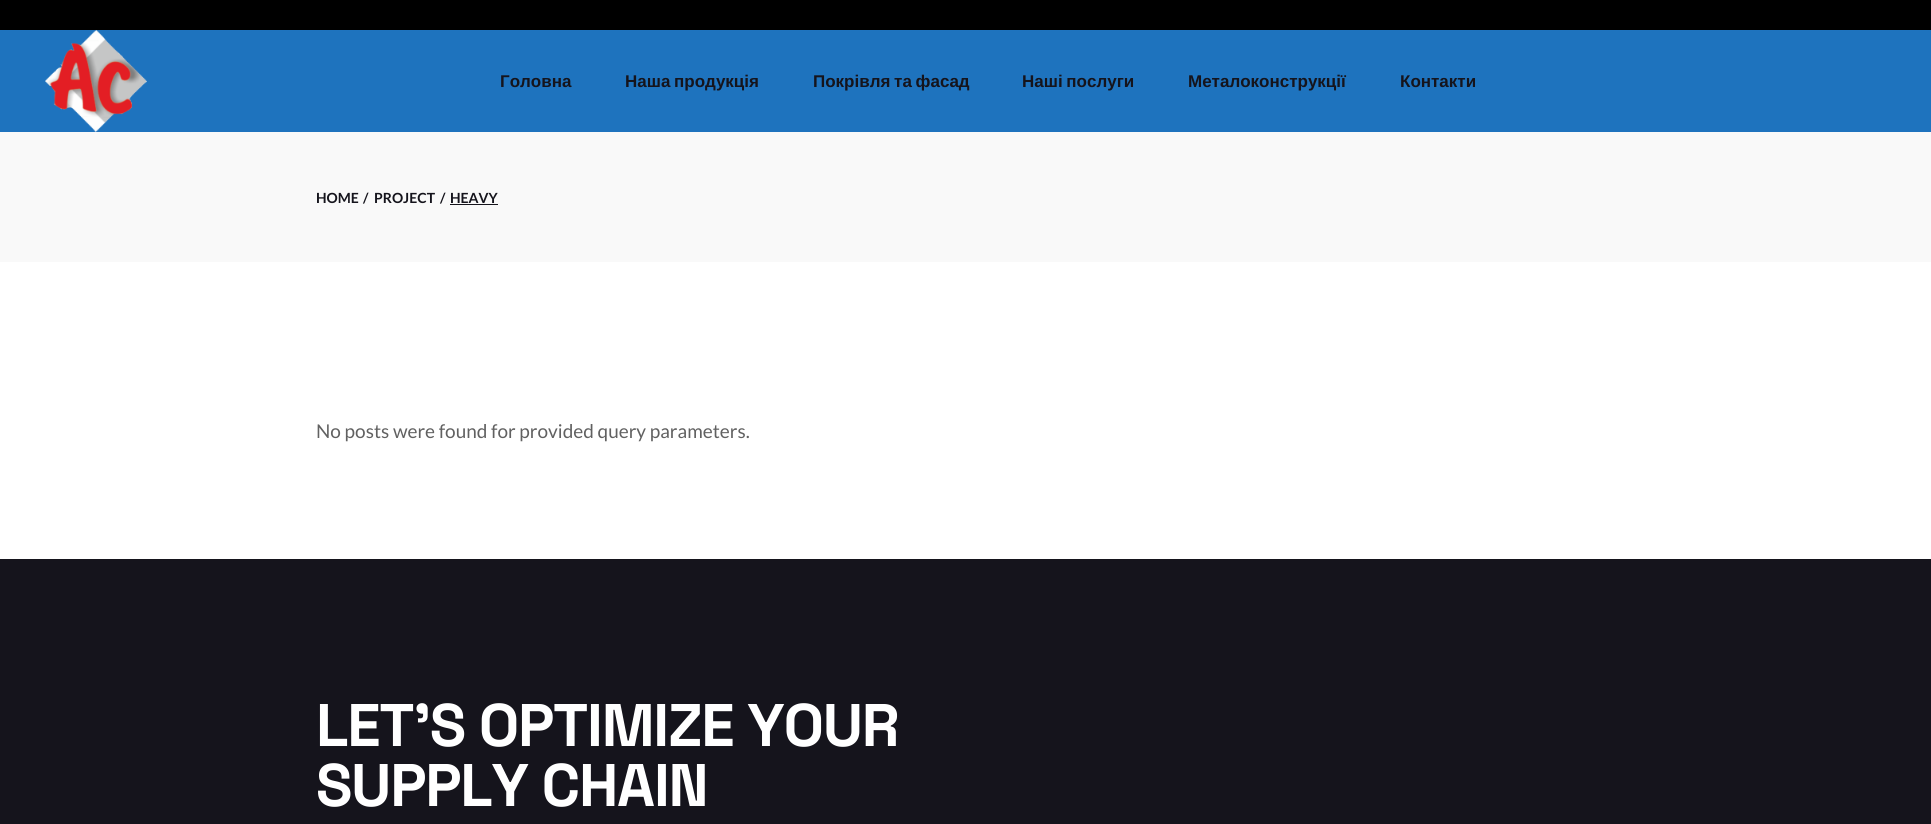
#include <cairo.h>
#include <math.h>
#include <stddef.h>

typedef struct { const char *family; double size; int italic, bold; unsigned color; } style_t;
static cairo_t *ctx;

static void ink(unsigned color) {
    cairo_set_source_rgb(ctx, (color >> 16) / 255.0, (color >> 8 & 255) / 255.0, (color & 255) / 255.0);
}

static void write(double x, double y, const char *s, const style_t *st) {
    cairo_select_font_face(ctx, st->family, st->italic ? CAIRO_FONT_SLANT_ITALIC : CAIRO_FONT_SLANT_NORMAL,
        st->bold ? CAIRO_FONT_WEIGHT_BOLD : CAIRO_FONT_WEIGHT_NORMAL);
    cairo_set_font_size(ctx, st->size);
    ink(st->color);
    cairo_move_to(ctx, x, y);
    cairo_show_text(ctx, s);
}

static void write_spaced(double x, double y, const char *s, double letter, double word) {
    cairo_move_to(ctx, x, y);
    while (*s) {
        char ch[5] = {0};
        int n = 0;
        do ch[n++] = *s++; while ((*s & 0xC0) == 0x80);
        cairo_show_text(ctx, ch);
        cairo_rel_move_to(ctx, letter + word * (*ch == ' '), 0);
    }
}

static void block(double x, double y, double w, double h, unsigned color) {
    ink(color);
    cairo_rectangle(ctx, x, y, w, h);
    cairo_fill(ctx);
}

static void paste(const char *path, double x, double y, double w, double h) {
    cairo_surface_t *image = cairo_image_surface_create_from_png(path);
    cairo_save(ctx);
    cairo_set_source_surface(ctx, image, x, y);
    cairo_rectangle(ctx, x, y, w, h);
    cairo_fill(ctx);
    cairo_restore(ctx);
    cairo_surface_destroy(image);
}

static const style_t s1 = {"Liberation Sans", 17, 0, 1, 0x15141c};
static const style_t s2 = {"Lato", 14, 0, 1, 0x15141c};
static const style_t s3 = {"Lato", 19, 0, 0, 0x616161};

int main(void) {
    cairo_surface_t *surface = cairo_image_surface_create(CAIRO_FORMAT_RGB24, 1931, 824);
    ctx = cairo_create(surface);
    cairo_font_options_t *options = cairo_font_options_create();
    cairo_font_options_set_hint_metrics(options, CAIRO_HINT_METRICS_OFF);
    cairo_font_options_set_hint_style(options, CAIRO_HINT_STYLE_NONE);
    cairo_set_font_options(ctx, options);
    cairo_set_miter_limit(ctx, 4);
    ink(0xffffff);
    cairo_paint(ctx);
    block(0, 0, 1931, 30, 0x000000);
    block(0, 30, 1931, 102, 0x1e73be);
    paste("pic1.png", 45, 30, 102, 102);
    write(500, 87, "Головна", &s1);
    write_spaced(625, 87, "Наша продукція", 0, -1);
    write_spaced(813, 87, "Покрівля та фасад", 0, -1);
    write_spaced(1022, 87, "Наші послуги", 0, -1);
    write(1188, 87, "Металоконструкції", &s1);
    write(1400, 87, "Контакти", &s1);
    block(0, 132, 1931, 130, 0xf9f9f9);
    write(316, 203, "HOME", &s2);
    write(363, 203, "/", &s2);
    write(374, 203, "PROJECT", &s2);
    write(440, 203, "/", &s2);
    write(450, 203, "HEAVY", &s2);
    block(450, 204, 48, 1, 0x15141c);
    write(316, 438, "No posts were found for provided query parameters.", &s3);
    block(0, 559, 1931, 265, 0x15141c);
    cairo_select_font_face(ctx, "Space Grotesk", CAIRO_FONT_SLANT_NORMAL, CAIRO_FONT_WEIGHT_BOLD);
    cairo_set_font_size(ctx, 60);
    ink(0xffffff);
    write_spaced(316, 746, "LET'S OPTIMIZE YOUR", -1.25, 0);
    write_spaced(316, 806, "SUPPLY CHAIN", -1.25, 0);
    cairo_surface_write_to_png(surface, "screenshot.png");
    cairo_font_options_destroy(options);
    cairo_destroy(ctx);
    cairo_surface_destroy(surface);
    return 0;
}
